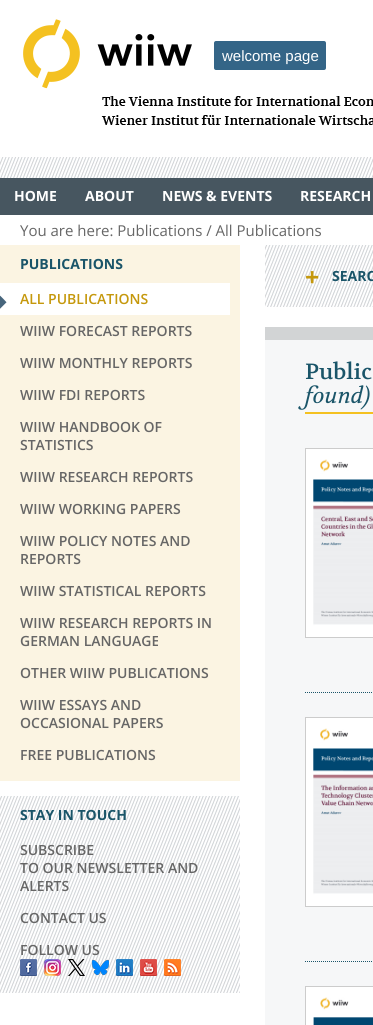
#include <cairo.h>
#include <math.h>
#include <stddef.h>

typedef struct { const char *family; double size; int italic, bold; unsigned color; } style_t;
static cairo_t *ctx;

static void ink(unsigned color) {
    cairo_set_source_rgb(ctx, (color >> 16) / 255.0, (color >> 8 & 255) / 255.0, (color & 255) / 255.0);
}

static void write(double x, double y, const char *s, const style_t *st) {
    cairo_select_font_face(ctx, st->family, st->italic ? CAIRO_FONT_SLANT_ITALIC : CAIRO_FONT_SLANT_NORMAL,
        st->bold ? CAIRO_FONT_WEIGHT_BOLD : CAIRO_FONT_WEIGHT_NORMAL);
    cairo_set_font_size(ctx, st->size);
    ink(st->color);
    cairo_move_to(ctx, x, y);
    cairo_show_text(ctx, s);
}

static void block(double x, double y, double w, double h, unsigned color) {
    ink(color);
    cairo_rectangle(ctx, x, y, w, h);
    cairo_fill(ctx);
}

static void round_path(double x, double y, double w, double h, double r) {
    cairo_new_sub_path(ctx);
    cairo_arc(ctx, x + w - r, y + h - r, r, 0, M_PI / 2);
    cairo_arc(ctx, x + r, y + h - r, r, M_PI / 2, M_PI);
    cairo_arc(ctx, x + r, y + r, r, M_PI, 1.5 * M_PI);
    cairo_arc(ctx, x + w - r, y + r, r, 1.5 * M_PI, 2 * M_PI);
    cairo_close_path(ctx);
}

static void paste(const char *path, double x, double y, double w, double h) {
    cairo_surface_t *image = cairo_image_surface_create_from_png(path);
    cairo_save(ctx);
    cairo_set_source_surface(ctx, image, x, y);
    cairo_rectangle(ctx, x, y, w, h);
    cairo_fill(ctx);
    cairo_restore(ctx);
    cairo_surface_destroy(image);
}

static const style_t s1 = {"Liberation Sans", 15, 0, 0, 0xffffff};
static const style_t s2 = {"Open Sans", 14, 0, 1, 0xffffff};
static const style_t s3 = {"Open Sans", 15, 0, 0, 0x666666};
static const style_t s4 = {"Open Sans", 14, 0, 1, 0x1a5569};
static const style_t s5 = {"Open Sans SemiBold", 14, 0, 0, 0xc5980c};
static const style_t s6 = {"Open Sans SemiBold", 14, 0, 0, 0x666666};
static const style_t s7 = {"Open Sans", 25, 0, 1, 0xc5980c};
static const style_t s8 = {"Volkhov", 22, 0, 0, 0x1a5569};
static const style_t s9 = {"Volkhov", 22, 1, 0, 0x1a5569};

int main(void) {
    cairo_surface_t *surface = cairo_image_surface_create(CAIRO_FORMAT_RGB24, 373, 1025);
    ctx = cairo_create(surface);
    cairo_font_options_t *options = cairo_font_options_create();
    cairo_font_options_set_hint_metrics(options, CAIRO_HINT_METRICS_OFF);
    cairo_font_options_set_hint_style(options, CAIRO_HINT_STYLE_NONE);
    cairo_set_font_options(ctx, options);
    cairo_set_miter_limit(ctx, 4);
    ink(0xffffff);
    cairo_paint(ctx);
    paste("pic1.png", 0, 157, 373, 21);
    paste("pic2.png", 0, 0, 373, 157);
    ink(0x346587);
    round_path(214, 41, 112, 29, 2);
    cairo_fill(ctx);
    write(222, 61, "welcome page", &s1);
    block(0, 178, 373, 37, 0x475660);
    write(14, 201, "HOME", &s2);
    write(85, 201, "ABOUT", &s2);
    write(162, 201, "NEWS & EVENTS", &s2);
    write(300, 201, "RESEARCH", &s2);
    write(20, 236, "You are here: Publications / All Publications", &s3);
    block(0, 245, 240, 536, 0xfbf4e2);
    write(20, 269, "PUBLICATIONS", &s4);
    block(0, 283, 230, 32, 0xffffff);
    paste("pic3.png", 0, 295, 7, 14);
    write(20, 304, "ALL PUBLICATIONS", &s5);
    write(20, 336, "WIIW FORECAST REPORTS", &s6);
    write(20, 368, "WIIW MONTHLY REPORTS", &s6);
    write(20, 400, "WIIW FDI REPORTS", &s6);
    write(20, 432, "WIIW HANDBOOK OF", &s6);
    write(20, 450, "STATISTICS", &s6);
    write(20, 482, "WIIW RESEARCH REPORTS", &s6);
    write(20, 514, "WIIW WORKING PAPERS", &s6);
    write(20, 546, "WIIW POLICY NOTES AND", &s6);
    write(20, 564, "REPORTS", &s6);
    write(20, 596, "WIIW STATISTICAL REPORTS", &s6);
    write(20, 628, "WIIW RESEARCH REPORTS IN", &s6);
    write(20, 646, "GERMAN LANGUAGE", &s6);
    write(20, 678, "OTHER WIIW PUBLICATIONS", &s6);
    write(20, 710, "WIIW ESSAYS AND", &s6);
    write(20, 728, "OCCASIONAL PAPERS", &s6);
    write(20, 760, "FREE PUBLICATIONS", &s6);
    paste("pic4.png", 0, 796, 240, 197);
    write(20, 820, "STAY IN TOUCH", &s4);
    write(20, 855, "SUBSCRIBE", &s6);
    write(20, 873, "TO OUR NEWSLETTER AND", &s6);
    write(20, 891, "ALERTS", &s6);
    write(20, 923, "CONTACT US", &s6);
    write(20, 955, "FOLLOW US", &s6);
    paste("pic5.png", 20, 959, 17, 17);
    paste("pic6.png", 44, 959, 17, 17);
    paste("pic7.png", 68, 959, 17, 17);
    paste("pic8.png", 92, 959, 17, 17);
    paste("pic9.png", 116, 959, 17, 17);
    paste("pic10.png", 140, 959, 17, 17);
    paste("pic11.png", 164, 959, 17, 17);
    paste("pic12.png", 265, 245, 108, 62);
    write(305, 286, "+", &s7);
    write(332, 281, "SEARC", &s4);
    block(265, 340, 108, 685, 0xf6f7f8);
    block(265, 327, 108, 13, 0xd2d4d5);
    block(305, 412, 68, 2, 0xf4c121);
    write(305, 379, "Public", &s8);
    write(305, 403, "found)", &s9);
    cairo_new_path(ctx);
    cairo_move_to(ctx, 305, 692.5);
    cairo_line_to(ctx, 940, 692.5);
    cairo_set_line_width(ctx, 1);
    cairo_set_dash(ctx, (double[]){1, 1}, 2, 0);
    cairo_stroke(ctx);
    cairo_rectangle(ctx, 305.5, 448.5, 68, 189);
    ink(0xcccccc);
    cairo_set_dash(ctx, NULL, 0, 0);
    cairo_stroke(ctx);
    paste("pic13.png", 306, 449, 67, 188);
    cairo_new_path(ctx);
    cairo_move_to(ctx, 305, 961.5);
    cairo_line_to(ctx, 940, 961.5);
    ink(0x1a5569);
    cairo_set_dash(ctx, (double[]){1, 1}, 2, 0);
    cairo_stroke(ctx);
    cairo_rectangle(ctx, 305.5, 717.5, 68, 189);
    ink(0xcccccc);
    cairo_set_dash(ctx, NULL, 0, 0);
    cairo_stroke(ctx);
    paste("pic14.png", 306, 718, 67, 188);
    cairo_rectangle(ctx, 305.5, 986.5, 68, 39);
    cairo_stroke(ctx);
    paste("pic15.png", 306, 987, 67, 38);
    cairo_surface_write_to_png(surface, "screenshot.png");
    cairo_font_options_destroy(options);
    cairo_destroy(ctx);
    cairo_surface_destroy(surface);
    return 0;
}
